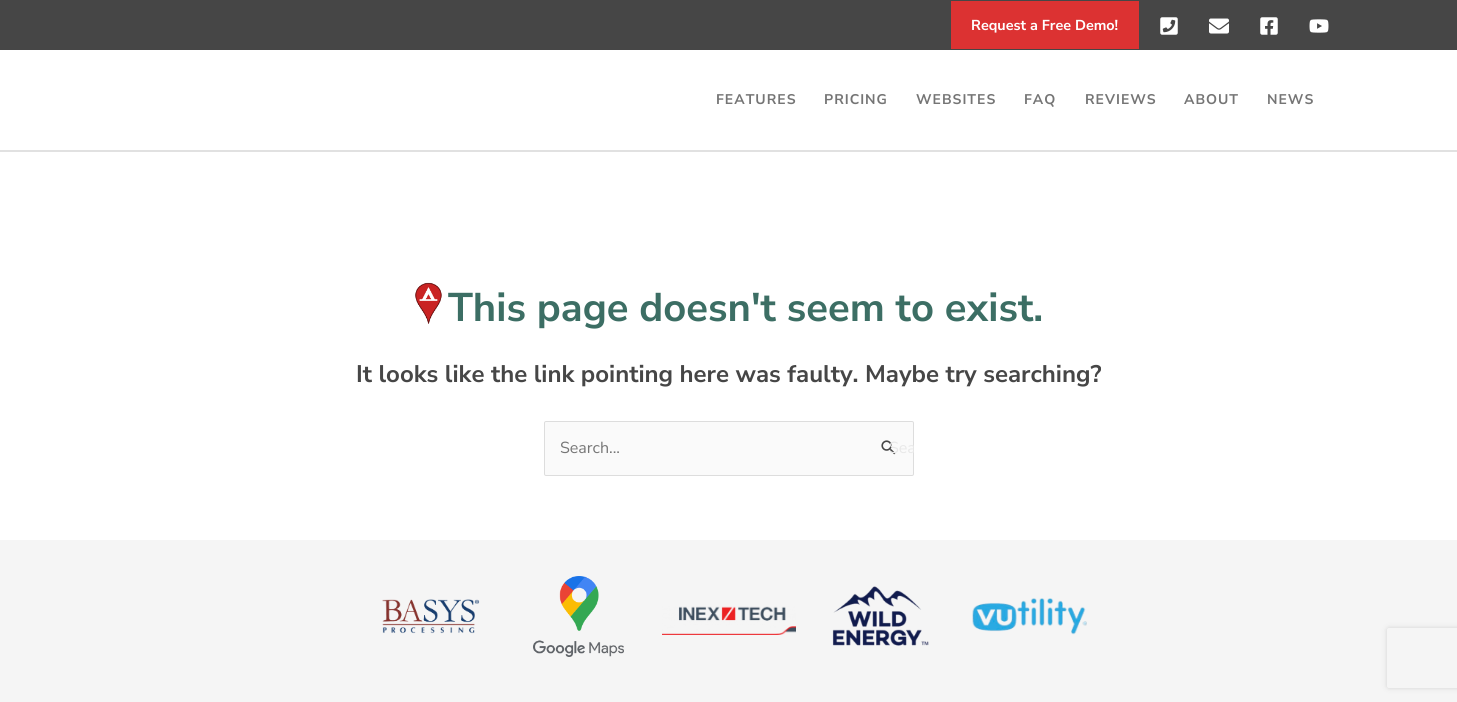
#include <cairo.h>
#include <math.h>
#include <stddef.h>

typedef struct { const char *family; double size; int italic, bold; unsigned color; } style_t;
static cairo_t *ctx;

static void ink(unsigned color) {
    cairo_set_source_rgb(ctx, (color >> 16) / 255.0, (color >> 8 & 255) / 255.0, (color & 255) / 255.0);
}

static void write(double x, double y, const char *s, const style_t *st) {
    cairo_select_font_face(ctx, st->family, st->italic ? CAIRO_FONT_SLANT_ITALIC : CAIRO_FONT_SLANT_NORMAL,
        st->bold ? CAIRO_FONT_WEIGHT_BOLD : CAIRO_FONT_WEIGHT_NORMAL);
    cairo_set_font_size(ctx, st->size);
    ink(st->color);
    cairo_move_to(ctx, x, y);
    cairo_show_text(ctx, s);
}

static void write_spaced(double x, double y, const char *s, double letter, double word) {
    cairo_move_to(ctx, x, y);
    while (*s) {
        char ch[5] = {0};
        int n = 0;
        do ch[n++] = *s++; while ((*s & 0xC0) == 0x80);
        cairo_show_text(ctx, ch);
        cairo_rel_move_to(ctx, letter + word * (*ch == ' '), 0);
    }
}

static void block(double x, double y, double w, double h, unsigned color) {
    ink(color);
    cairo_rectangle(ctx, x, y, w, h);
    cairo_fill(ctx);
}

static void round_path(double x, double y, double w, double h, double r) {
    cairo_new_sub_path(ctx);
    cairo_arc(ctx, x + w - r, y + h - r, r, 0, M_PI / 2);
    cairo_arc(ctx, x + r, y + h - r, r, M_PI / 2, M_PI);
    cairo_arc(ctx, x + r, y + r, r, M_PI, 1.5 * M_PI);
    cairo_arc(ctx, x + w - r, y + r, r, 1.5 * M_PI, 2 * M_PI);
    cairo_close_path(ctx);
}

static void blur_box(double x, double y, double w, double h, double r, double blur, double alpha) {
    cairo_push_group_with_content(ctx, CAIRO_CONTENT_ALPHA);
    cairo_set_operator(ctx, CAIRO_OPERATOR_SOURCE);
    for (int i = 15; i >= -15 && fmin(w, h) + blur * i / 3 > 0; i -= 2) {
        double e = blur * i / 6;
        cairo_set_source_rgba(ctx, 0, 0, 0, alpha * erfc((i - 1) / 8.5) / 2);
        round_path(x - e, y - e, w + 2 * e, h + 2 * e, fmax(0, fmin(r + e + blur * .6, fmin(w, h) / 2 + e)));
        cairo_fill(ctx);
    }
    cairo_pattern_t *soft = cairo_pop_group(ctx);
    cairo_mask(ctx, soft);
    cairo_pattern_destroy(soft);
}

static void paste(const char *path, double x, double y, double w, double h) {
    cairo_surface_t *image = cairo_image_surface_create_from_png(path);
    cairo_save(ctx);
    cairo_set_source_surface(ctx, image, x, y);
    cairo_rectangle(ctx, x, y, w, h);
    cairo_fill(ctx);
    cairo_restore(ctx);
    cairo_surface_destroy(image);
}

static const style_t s1 = {"Nunito Sans", 14.4, 0, 1, 0xffffff};
static const style_t s2 = {"Nunito Sans", 40, 0, 1, 0x3c6e64};
static const style_t s3 = {"Nunito Sans", 24, 0, 1, 0x464646};
static const style_t s4 = {"Nunito Sans", 16, 0, 0, 0x757575};
static const style_t s5 = {"Nunito Sans", 16, 0, 0, 0xe8e8e8};

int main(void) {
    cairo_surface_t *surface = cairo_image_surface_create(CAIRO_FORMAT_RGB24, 1457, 702);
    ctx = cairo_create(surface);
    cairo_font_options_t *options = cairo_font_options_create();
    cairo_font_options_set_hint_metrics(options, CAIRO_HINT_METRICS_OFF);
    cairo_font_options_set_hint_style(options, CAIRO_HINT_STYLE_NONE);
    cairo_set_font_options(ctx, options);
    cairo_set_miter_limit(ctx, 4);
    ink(0xffffff);
    cairo_paint(ctx);
    block(0, 0, 1457, 50, 0x464646);
    block(951, 1, 188, 48, 0xdc3232);
    write(971, 30, "Request a Free Demo!", &s1);
    paste("pic1.png", 1160, 17, 18, 18);
    paste("pic2.png", 1209, 18, 20, 16);
    paste("pic3.png", 1260, 17, 18, 18);
    paste("pic4.png", 1309, 19, 20, 14);
    block(0, 150, 1457, 2, 0xe1e1e1);
    cairo_set_font_size(ctx, 14);
    ink(0x757575);
    write_spaced(716, 104, "FEATURES", 1, 0);
    write_spaced(824, 104, "PRICING", 1, 0);
    write_spaced(916, 104, "WEBSITES", 1, 0);
    write_spaced(1024, 104, "FAQ", 1, 0);
    write_spaced(1085, 104, "REVIEWS", 1, 0);
    write_spaced(1184, 104, "ABOUT", 1, 0);
    write_spaced(1267, 104, "NEWS", 1, 0);
    paste("pic5.png", 415, 282, 27, 42);
    write(448, 321, "This page doesn't seem to exist.", &s2);
    write(356, 382, "It looks like the link pointing here was faulty. Maybe try searching?", &s3);
    ink(0xfafafa);
    round_path(544.5, 421.5, 369, 54, 1.5);
    cairo_fill_preserve(ctx);
    ink(0xdddddd);
    cairo_set_line_width(ctx, 1);
    cairo_stroke(ctx);
    write(560, 453, "Search...", &s4);
    paste("pic6.png", 881, 440, 15, 15);
    cairo_save(ctx);
    round_path(869, 421, 45, 56, 2);
    cairo_clip(ctx);
    write(889, 453, "Sea", &s5);
    cairo_restore(ctx);
    block(0, 540, 1457, 162, 0xf5f5f5);
    paste("pic7.png", 382, 599, 98, 35);
    paste("pic8.png", 533, 576, 91, 81);
    paste("pic9.png", 662, 606, 134, 29);
    paste("pic10.png", 832, 586, 97, 60);
    paste("pic11.png", 972, 598, 115, 37);
    cairo_save(ctx);
    cairo_set_fill_rule(ctx, CAIRO_FILL_RULE_EVEN_ODD);
    cairo_new_path(ctx);
    cairo_move_to(ctx, 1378, 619);
    cairo_line_to(ctx, 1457, 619);
    cairo_line_to(ctx, 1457, 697);
    cairo_line_to(ctx, 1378, 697);
    cairo_close_path(ctx);
    cairo_move_to(ctx, 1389, 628);
    cairo_line_to(ctx, 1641, 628);
    cairo_curve_to(ctx, 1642, 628, 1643, 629, 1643, 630);
    cairo_line_to(ctx, 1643, 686);
    cairo_curve_to(ctx, 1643, 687, 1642, 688, 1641, 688);
    cairo_line_to(ctx, 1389, 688);
    cairo_curve_to(ctx, 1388, 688, 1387, 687, 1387, 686);
    cairo_line_to(ctx, 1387, 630);
    cairo_curve_to(ctx, 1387, 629, 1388, 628, 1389, 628);
    cairo_close_path(ctx);
    cairo_clip(ctx);
    ink(0xd2d2d2);
    blur_box(1387, 628, 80, 60, 2, 2.5, 1);
    cairo_restore(ctx);
    cairo_surface_write_to_png(surface, "screenshot.png");
    cairo_font_options_destroy(options);
    cairo_destroy(ctx);
    cairo_surface_destroy(surface);
    return 0;
}
